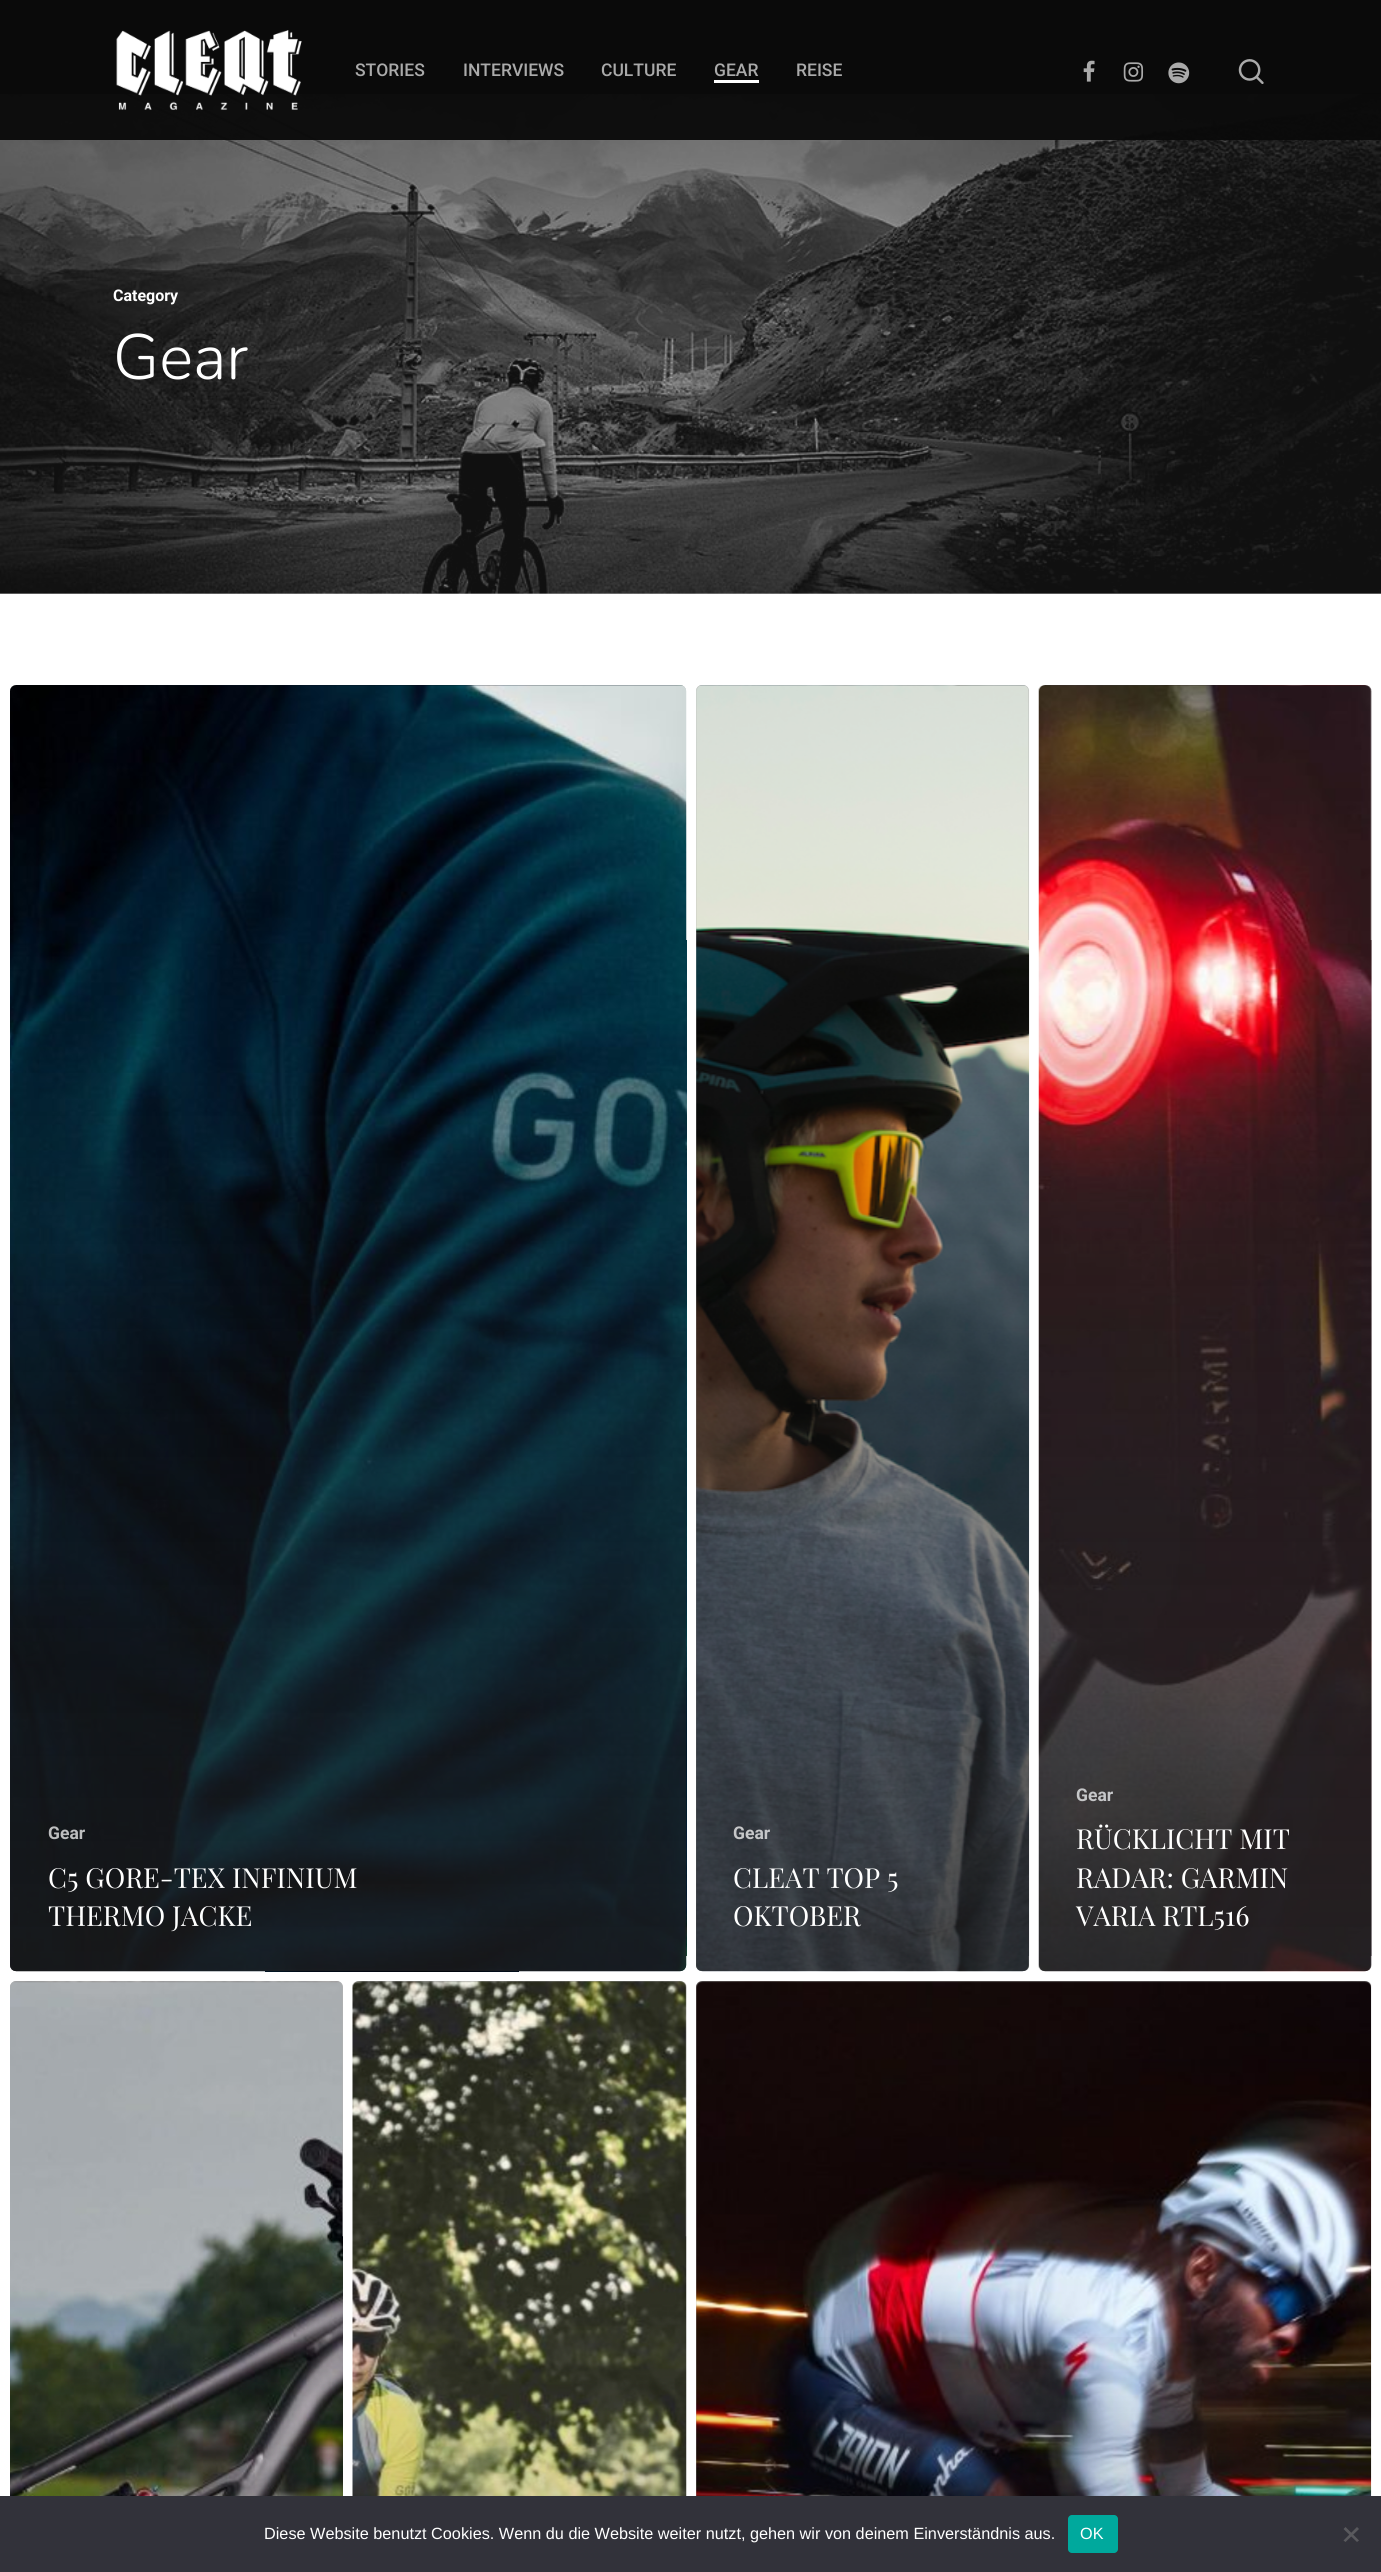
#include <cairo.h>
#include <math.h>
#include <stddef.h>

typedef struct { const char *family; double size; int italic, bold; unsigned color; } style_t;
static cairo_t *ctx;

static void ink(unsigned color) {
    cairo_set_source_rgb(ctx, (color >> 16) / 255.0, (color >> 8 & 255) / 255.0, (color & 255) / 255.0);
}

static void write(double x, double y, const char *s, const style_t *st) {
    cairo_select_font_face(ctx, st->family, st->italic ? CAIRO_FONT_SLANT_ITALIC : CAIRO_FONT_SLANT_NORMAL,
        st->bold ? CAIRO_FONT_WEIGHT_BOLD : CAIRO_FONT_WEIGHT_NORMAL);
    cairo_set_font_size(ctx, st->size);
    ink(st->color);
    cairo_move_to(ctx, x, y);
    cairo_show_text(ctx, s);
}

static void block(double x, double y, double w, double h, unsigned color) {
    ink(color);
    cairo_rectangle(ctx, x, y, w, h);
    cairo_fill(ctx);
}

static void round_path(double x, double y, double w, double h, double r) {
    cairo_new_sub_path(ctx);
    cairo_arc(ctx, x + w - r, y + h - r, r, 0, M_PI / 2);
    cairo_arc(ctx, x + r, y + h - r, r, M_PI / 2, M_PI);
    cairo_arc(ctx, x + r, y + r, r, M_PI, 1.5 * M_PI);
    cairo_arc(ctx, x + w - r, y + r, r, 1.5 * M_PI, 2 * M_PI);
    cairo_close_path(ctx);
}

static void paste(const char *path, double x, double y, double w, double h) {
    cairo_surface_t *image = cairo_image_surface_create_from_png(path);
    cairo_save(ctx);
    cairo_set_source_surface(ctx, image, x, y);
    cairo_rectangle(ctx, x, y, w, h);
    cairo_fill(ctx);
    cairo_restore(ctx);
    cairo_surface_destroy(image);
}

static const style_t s1 = {"Roboto Medium", 17.5, 0, 0, 0xaaaaaa};
static const style_t s2 = {"Roboto", 16, 0, 1, 0xffffff};
static const style_t s3 = {"Nunito Light", 64, 0, 0, 0xffffff};
static const style_t s4 = {"Roboto", 17.5, 0, 1, 0xbdbebf};
static const style_t s5 = {"Playfair Display", 27.6, 0, 0, 0xffffff};
static const style_t s6 = {"Roboto", 17.5, 0, 1, 0xc6c7c9};
static const style_t s7 = {"Liberation Sans", 16.25, 0, 0, 0xffffff};

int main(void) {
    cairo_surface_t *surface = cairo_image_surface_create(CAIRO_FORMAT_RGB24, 1381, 2572);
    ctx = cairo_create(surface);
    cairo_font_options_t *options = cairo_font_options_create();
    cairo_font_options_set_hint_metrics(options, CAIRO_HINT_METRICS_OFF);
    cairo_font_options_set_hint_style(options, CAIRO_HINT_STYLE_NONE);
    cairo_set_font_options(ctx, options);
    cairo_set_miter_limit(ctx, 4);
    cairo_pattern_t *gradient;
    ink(0xffffff);
    cairo_paint(ctx);
    block(0, 593, 1381, 1, 0xb6b6b6);
    block(0, 0, 1381, 94, 0x0a0a0a);
    paste("pic6.png", 0, 93, 1381, 501);
    cairo_set_source_rgba(ctx, 0.039, 0.039, 0.039, 0.95);
    cairo_rectangle(ctx, 0, 93, 1381, 47);
    cairo_fill(ctx);
    paste("pic1.png", 116, 30, 186, 80);
    write(355, 76, "STORIES", &s1);
    write(463, 76, "INTERVIEWS", &s1);
    write(601, 76, "CULTURE", &s1);
    write(714, 76, "GEAR", &s1);
    block(714, 80, 45, 3, 0xffffff);
    write(796, 76, "REISE", &s1);
    paste("pic2.png", 1083, 60, 12, 22);
    paste("pic3.png", 1123, 62, 21, 20);
    paste("pic4.png", 1168, 62, 22, 22);
    paste("pic5.png", 1238, 59, 26, 25);
    write(113, 301, "Category", &s2);
    write(113, 379, "Gear", &s3);
    ink(0xb3b3b3);
    round_path(10, 685, 676, 1286, 6);
    cairo_fill(ctx);
    paste("pic7.png", 10, 685, 677, 1287);
    gradient = cairo_pattern_create_linear(349, 1009, 349, 1978);
    cairo_pattern_add_color_stop_rgba(gradient, 0, 0.137, 0.137, 0.137, 0);
    cairo_pattern_add_color_stop_rgba(gradient, 1, 0.137, 0.137, 0.137, 0.65);
    cairo_set_source(ctx, gradient);
    cairo_pattern_destroy(gradient);
    cairo_new_path(ctx);
    cairo_move_to(ctx, 10, 1009);
    cairo_line_to(ctx, 686, 1009);
    cairo_line_to(ctx, 686, 1965);
    cairo_curve_to(ctx, 686, 1968.5, 683.5, 1971, 680, 1971);
    cairo_line_to(ctx, 16, 1971);
    cairo_curve_to(ctx, 12.5, 1971, 10, 1968.5, 10, 1965);
    cairo_close_path(ctx);
    cairo_fill(ctx);
    write(48, 1839, "Gear", &s4);
    write(48, 1888, "C5 GORE-TEX INFINIUM", &s5);
    write(48, 1926, "THERMO JACKE", &s5);
    ink(0xb3b3b3);
    round_path(696, 685, 333, 1286, 6);
    cairo_fill(ctx);
    paste("pic8.png", 696, 685, 334, 1287);
    gradient = cairo_pattern_create_linear(863, 1009, 863, 1978);
    cairo_pattern_add_color_stop_rgba(gradient, 0, 0.137, 0.137, 0.137, 0);
    cairo_pattern_add_color_stop_rgba(gradient, 1, 0.137, 0.137, 0.137, 0.65);
    cairo_set_source(ctx, gradient);
    cairo_pattern_destroy(gradient);
    cairo_new_path(ctx);
    cairo_move_to(ctx, 696, 1009);
    cairo_line_to(ctx, 1029, 1009);
    cairo_line_to(ctx, 1029, 1965);
    cairo_curve_to(ctx, 1029, 1968.5, 1026.5, 1971, 1023, 1971);
    cairo_line_to(ctx, 702, 1971);
    cairo_curve_to(ctx, 698.5, 1971, 696, 1968.5, 696, 1965);
    cairo_close_path(ctx);
    cairo_fill(ctx);
    write(733, 1839, "Gear", &s6);
    write(733, 1888, "CLEAT TOP 5", &s5);
    write(733, 1926, "OKTOBER", &s5);
    paste("pic9.png", 1038, 685, 334, 1287);
    gradient = cairo_pattern_create_linear(1206, 1009, 1206, 1978);
    cairo_pattern_add_color_stop_rgba(gradient, 0, 0.137, 0.137, 0.137, 0);
    cairo_pattern_add_color_stop_rgba(gradient, 1, 0.137, 0.137, 0.137, 0.65);
    cairo_set_source(ctx, gradient);
    cairo_pattern_destroy(gradient);
    cairo_new_path(ctx);
    cairo_move_to(ctx, 1039, 1009);
    cairo_line_to(ctx, 1371, 1009);
    cairo_line_to(ctx, 1371, 1965);
    cairo_curve_to(ctx, 1371, 1968.5, 1368.5, 1971, 1365, 1971);
    cairo_line_to(ctx, 1045, 1971);
    cairo_curve_to(ctx, 1041.5, 1971, 1039, 1968.5, 1039, 1965);
    cairo_close_path(ctx);
    cairo_fill(ctx);
    write(1076, 1801, "Gear", &s6);
    write(1076, 1849, "RÜCKLICHT MIT", &s5);
    write(1076, 1888, "RADAR: GARMIN", &s5);
    write(1076, 1926, "VARIA RTL516", &s5);
    ink(0xb3b3b3);
    round_path(10, 1981, 333, 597, 6);
    cairo_fill(ctx);
    paste("pic10.png", 10, 1981, 333, 515);
    round_path(353, 1981, 333, 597, 6);
    cairo_fill(ctx);
    paste("pic11.png", 352, 1981, 335, 515);
    round_path(696, 1981, 675, 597, 6);
    cairo_fill(ctx);
    paste("pic12.png", 696, 1981, 676, 515);
    gradient = cairo_pattern_create_linear(1036, 2305, 1036, 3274);
    cairo_pattern_add_color_stop_rgba(gradient, 0, 0.137, 0.137, 0.137, 0);
    cairo_pattern_add_color_stop_rgba(gradient, 1, 0.137, 0.137, 0.137, 0.65);
    cairo_set_source(ctx, gradient);
    cairo_pattern_destroy(gradient);
    cairo_rectangle(ctx, 696, 2337, 675, 159);
    cairo_fill(ctx);
    block(0, 2496, 1381, 76, 0x32323a);
    write(264, 2539, "Diese Website benutzt Cookies. Wenn du die Website weiter nutzt, gehen wir von deinem Einverständnis aus.", &s7);
    ink(0x00a99d);
    round_path(1068, 2515, 50, 38, 4);
    cairo_fill(ctx);
    write(1080, 2539, "OK", &s7);
    ink(0x59595d);
    cairo_new_path(ctx);
    cairo_move_to(ctx, 1357, 2527);
    cairo_line_to(ctx, 1359, 2529);
    cairo_line_to(ctx, 1345.5, 2542);
    cairo_line_to(ctx, 1343.5, 2540.5);
    cairo_close_path(ctx);
    cairo_fill(ctx);
    cairo_new_path(ctx);
    cairo_move_to(ctx, 1343.5, 2529);
    cairo_line_to(ctx, 1345.5, 2527);
    cairo_line_to(ctx, 1359, 2540.5);
    cairo_line_to(ctx, 1357, 2542);
    cairo_close_path(ctx);
    cairo_fill(ctx);
    cairo_surface_write_to_png(surface, "screenshot.png");
    cairo_font_options_destroy(options);
    cairo_destroy(ctx);
    cairo_surface_destroy(surface);
    return 0;
}
